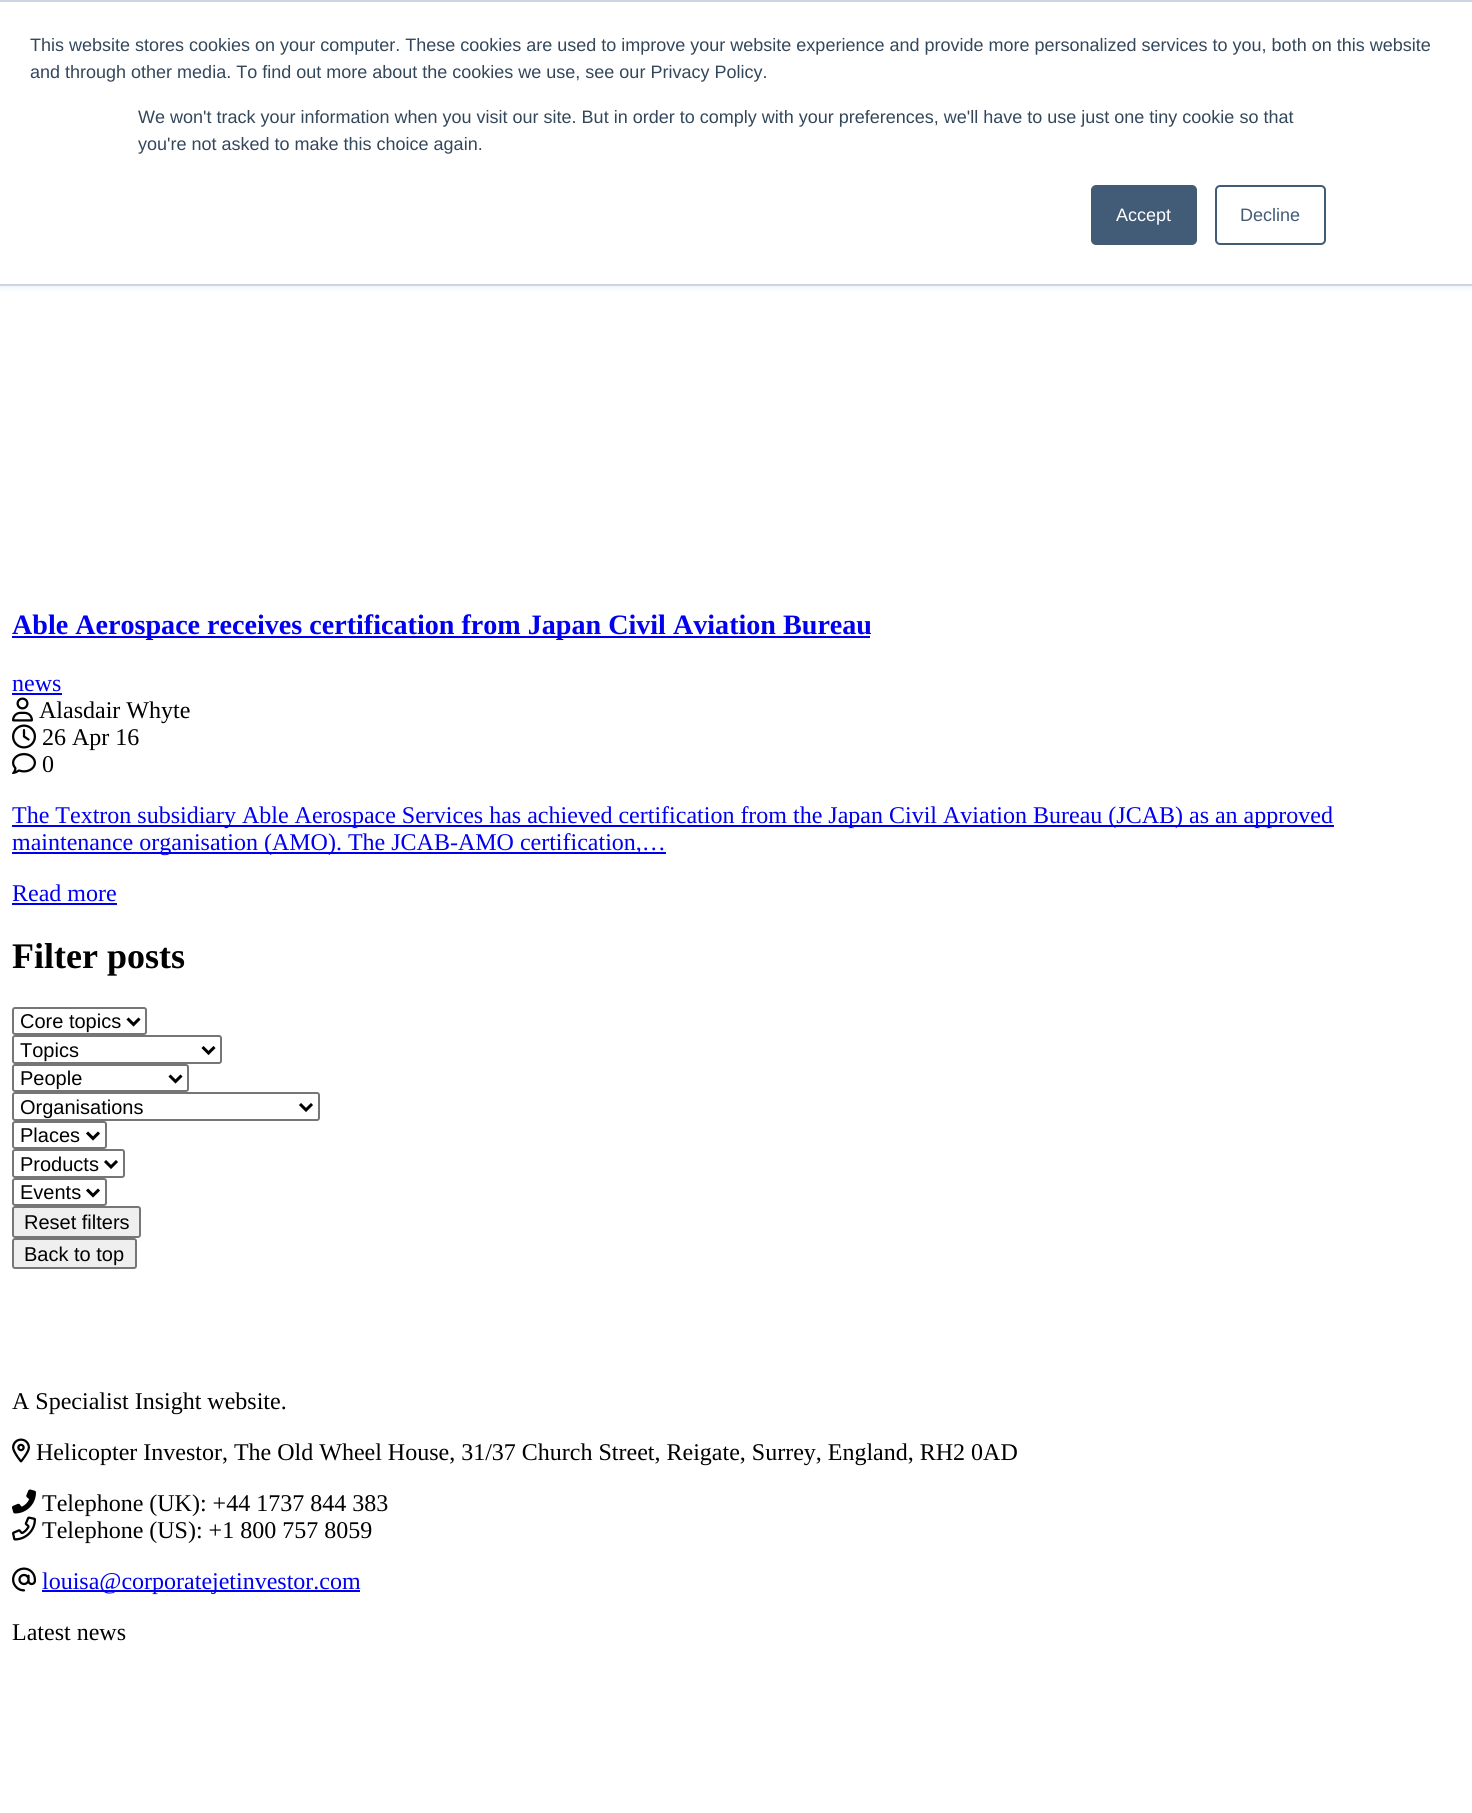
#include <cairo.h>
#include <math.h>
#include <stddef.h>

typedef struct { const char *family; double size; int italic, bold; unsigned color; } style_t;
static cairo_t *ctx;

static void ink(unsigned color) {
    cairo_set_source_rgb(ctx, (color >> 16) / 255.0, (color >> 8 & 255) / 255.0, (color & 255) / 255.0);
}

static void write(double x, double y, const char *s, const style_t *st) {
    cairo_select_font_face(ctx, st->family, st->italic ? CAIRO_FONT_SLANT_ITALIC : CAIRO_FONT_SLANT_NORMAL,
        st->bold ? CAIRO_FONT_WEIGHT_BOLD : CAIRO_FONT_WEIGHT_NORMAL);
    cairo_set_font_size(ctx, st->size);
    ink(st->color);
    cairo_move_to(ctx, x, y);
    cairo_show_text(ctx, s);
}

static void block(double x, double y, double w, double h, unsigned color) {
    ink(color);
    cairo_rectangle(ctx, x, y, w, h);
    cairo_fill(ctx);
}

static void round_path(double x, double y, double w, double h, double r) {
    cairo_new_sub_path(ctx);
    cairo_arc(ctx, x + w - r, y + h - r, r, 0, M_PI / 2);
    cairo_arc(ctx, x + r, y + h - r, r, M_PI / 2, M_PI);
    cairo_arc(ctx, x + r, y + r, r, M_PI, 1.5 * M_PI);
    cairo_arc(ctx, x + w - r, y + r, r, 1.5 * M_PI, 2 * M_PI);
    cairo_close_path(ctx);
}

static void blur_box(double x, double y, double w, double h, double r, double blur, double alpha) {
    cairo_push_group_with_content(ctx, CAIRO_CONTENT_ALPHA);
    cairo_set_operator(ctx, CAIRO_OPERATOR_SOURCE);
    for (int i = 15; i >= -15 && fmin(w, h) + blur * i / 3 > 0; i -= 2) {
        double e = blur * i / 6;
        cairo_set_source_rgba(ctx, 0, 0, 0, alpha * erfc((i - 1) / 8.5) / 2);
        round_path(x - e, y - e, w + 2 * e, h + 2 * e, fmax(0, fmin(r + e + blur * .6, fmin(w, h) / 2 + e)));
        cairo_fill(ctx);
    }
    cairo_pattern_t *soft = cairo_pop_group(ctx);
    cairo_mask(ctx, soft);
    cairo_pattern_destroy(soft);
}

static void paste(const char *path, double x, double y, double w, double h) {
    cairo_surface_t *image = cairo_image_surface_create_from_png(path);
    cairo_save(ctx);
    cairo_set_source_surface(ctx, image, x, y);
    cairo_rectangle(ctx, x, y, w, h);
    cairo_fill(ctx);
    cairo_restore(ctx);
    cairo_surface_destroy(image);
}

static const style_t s1 = {"Liberation Sans", 18, 0, 0, 0x33475b};
static const style_t s2 = {"Liberation Sans", 18, 0, 0, 0xffffff};
static const style_t s3 = {"Liberation Sans", 18, 0, 0, 0x425b76};
static const style_t s4 = {"Liberation Serif", 28.1, 0, 1, 0x0000ee};
static const style_t s5 = {"Liberation Serif", 24, 0, 0, 0x0000ee};
static const style_t s6 = {"Liberation Serif", 24, 0, 0, 0x000000};
static const style_t s7 = {"Liberation Serif", 36, 0, 1, 0x000000};
static const style_t s8 = {"Liberation Sans", 20, 0, 0, 0x000000};

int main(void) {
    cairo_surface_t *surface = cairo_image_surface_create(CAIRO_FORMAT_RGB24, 1472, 1813);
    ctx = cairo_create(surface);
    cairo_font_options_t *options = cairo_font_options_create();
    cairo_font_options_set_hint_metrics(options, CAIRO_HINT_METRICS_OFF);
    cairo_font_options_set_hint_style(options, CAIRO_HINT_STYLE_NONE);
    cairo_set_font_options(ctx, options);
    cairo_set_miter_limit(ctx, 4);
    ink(0xffffff);
    cairo_paint(ctx);
    ink(0xeaf0f6);
    blur_box(0, 2, 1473, 285, 0, 4, 1);
    block(0, 2, 1472, 282, 0xffffff);
    block(0, 0, 1472, 2, 0xcbd6e2);
    block(0, 284, 1472, 2, 0xcbd6e2);
    write(30, 51, "This website stores cookies on your computer. These cookies are used to improve your website experience and provide more personalized services to you, both on this website", &s1);
    write(30, 78, "and through other media. To find out more about the cookies we use, see our Privacy Policy.", &s1);
    write(138, 123, "We won't track your information when you visit our site. But in order to comply with your preferences, we'll have to use just one tiny cookie so that", &s1);
    write(138, 150, "you're not asked to make this choice again.", &s1);
    ink(0x425b76);
    round_path(1092, 186, 104, 58, 4);
    cairo_fill_preserve(ctx);
    cairo_stroke(ctx);
    write(1116, 221, "Accept", &s2);
    round_path(1216, 186, 109, 58, 4);
    ink(0x425b76);
    cairo_stroke(ctx);
    write(1240, 221, "Decline", &s3);
    block(12, 636, 858, 2, 0x0000ee);
    write(12, 634, "Able Aerospace receives certification from Japan Civil Aviation Bureau", &s4);
    write(12, 691, "news", &s5);
    block(12, 693, 50, 2, 0x0000ee);
    paste("pic1.png", 12, 697, 21, 25);
    write(39, 718, "Alasdair Whyte", &s6);
    paste("pic2.png", 12, 724, 24, 25);
    write(42, 745, "26 Apr 16", &s6);
    paste("pic3.png", 12, 753, 24, 21);
    write(42, 772, "0", &s6);
    block(12, 825, 1322, 2, 0x0000ee);
    write(12, 823, "The Textron subsidiary Able Aerospace Services has achieved certification from the Japan Civil Aviation Bureau (JCAB) as an approved", &s5);
    block(12, 852, 654, 2, 0x0000ee);
    write(12, 850, "maintenance organisation (AMO). The JCAB-AMO certification,…", &s5);
    write(12, 901, "Read more", &s5);
    block(12, 903, 105, 2, 0x0000ee);
    write(12, 968, "Filter posts", &s7);
    round_path(13, 1008, 133, 26, 2);
    ink(0x767676);
    cairo_stroke(ctx);
    cairo_new_path(ctx);
    cairo_move_to(ctx, 127.5, 1018.5);
    cairo_line_to(ctx, 133.5, 1024.5);
    cairo_line_to(ctx, 139.5, 1018.5);
    ink(0x000000);
    cairo_set_line_width(ctx, 3);
    cairo_stroke(ctx);
    write(20, 1028, "Core topics", &s8);
    round_path(13, 1036, 208, 27, 2);
    ink(0x767676);
    cairo_set_line_width(ctx, 2);
    cairo_stroke(ctx);
    cairo_new_path(ctx);
    cairo_move_to(ctx, 202.5, 1047);
    cairo_line_to(ctx, 208.5, 1053);
    cairo_line_to(ctx, 214.5, 1047);
    ink(0x000000);
    cairo_set_line_width(ctx, 3);
    cairo_stroke(ctx);
    write(20, 1057, "Topics", &s8);
    round_path(13, 1065, 175, 26, 2);
    ink(0x767676);
    cairo_set_line_width(ctx, 2);
    cairo_stroke(ctx);
    cairo_new_path(ctx);
    cairo_move_to(ctx, 169.5, 1075.5);
    cairo_line_to(ctx, 175.5, 1081.5);
    cairo_line_to(ctx, 181.5, 1075.5);
    ink(0x000000);
    cairo_set_line_width(ctx, 3);
    cairo_stroke(ctx);
    write(20, 1085, "People", &s8);
    round_path(13, 1093, 306, 27, 2);
    ink(0x767676);
    cairo_set_line_width(ctx, 2);
    cairo_stroke(ctx);
    cairo_new_path(ctx);
    cairo_move_to(ctx, 300, 1104);
    cairo_line_to(ctx, 306, 1110);
    cairo_line_to(ctx, 312, 1104);
    ink(0x000000);
    cairo_set_line_width(ctx, 3);
    cairo_stroke(ctx);
    write(20, 1114, "Organisations", &s8);
    round_path(13, 1122, 93, 26, 2);
    ink(0x767676);
    cairo_set_line_width(ctx, 2);
    cairo_stroke(ctx);
    cairo_new_path(ctx);
    cairo_move_to(ctx, 87, 1132.5);
    cairo_line_to(ctx, 93, 1138.5);
    cairo_line_to(ctx, 99, 1132.5);
    ink(0x000000);
    cairo_set_line_width(ctx, 3);
    cairo_stroke(ctx);
    write(20, 1142, "Places", &s8);
    round_path(13, 1150, 111, 27, 2);
    ink(0x767676);
    cairo_set_line_width(ctx, 2);
    cairo_stroke(ctx);
    cairo_new_path(ctx);
    cairo_move_to(ctx, 105, 1161);
    cairo_line_to(ctx, 111, 1167);
    cairo_line_to(ctx, 117, 1161);
    ink(0x000000);
    cairo_set_line_width(ctx, 3);
    cairo_stroke(ctx);
    write(20, 1171, "Products", &s8);
    round_path(13, 1179, 93, 26, 2);
    ink(0x767676);
    cairo_set_line_width(ctx, 2);
    cairo_stroke(ctx);
    cairo_new_path(ctx);
    cairo_move_to(ctx, 87, 1189.5);
    cairo_line_to(ctx, 93, 1195.5);
    cairo_line_to(ctx, 99, 1189.5);
    ink(0x000000);
    cairo_set_line_width(ctx, 3);
    cairo_stroke(ctx);
    write(20, 1199, "Events", &s8);
    ink(0xefefef);
    round_path(13, 1207, 127, 30, 2);
    cairo_fill_preserve(ctx);
    ink(0x767676);
    cairo_set_line_width(ctx, 2);
    cairo_stroke(ctx);
    write(24, 1229, "Reset filters", &s8);
    ink(0xefefef);
    round_path(13, 1239, 123, 29, 2);
    cairo_fill_preserve(ctx);
    ink(0x767676);
    cairo_stroke(ctx);
    write(24, 1261, "Back to top", &s8);
    write(12, 1409, "A Specialist Insight website.", &s6);
    paste("pic4.png", 12, 1438, 18, 25);
    write(36, 1460, "Helicopter Investor, The Old Wheel House, 31/37 Church Street, Reigate, Surrey, England, RH2 0AD", &s6);
    paste("pic5.png", 12, 1489, 24, 25);
    write(42, 1511, "Telephone (UK): +44 1737 844 383", &s6);
    paste("pic6.png", 12, 1516, 24, 25);
    write(42, 1538, "Telephone (US): +1 800 757 8059", &s6);
    paste("pic7.png", 12, 1567, 24, 25);
    block(42, 1590, 318, 2, 0x0000ee);
    write(42, 1589, "louisa@corporatejetinvestor.com", &s5);
    write(12, 1640, "Latest news", &s6);
    cairo_surface_write_to_png(surface, "screenshot.png");
    cairo_font_options_destroy(options);
    cairo_destroy(ctx);
    cairo_surface_destroy(surface);
    return 0;
}
